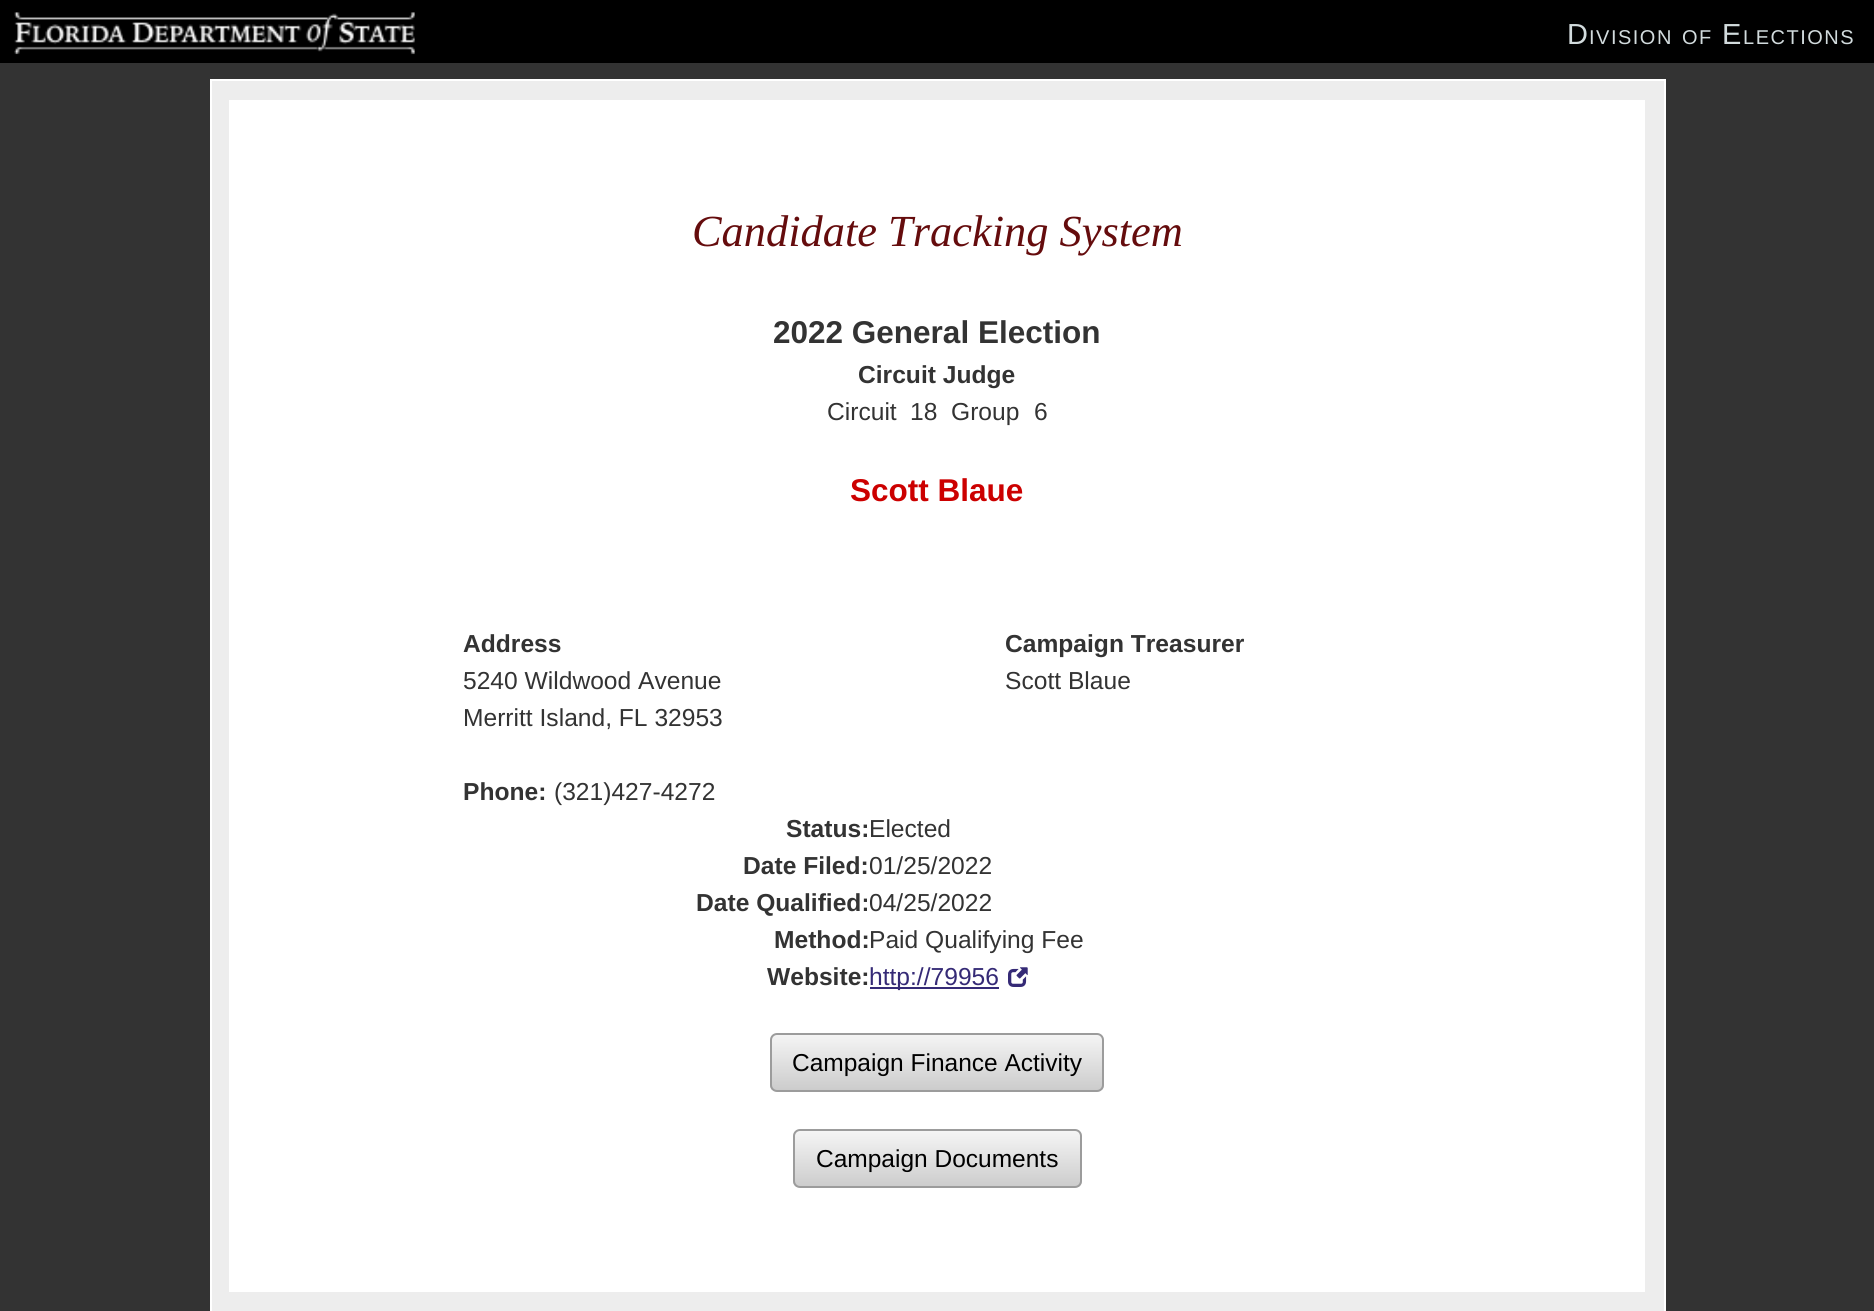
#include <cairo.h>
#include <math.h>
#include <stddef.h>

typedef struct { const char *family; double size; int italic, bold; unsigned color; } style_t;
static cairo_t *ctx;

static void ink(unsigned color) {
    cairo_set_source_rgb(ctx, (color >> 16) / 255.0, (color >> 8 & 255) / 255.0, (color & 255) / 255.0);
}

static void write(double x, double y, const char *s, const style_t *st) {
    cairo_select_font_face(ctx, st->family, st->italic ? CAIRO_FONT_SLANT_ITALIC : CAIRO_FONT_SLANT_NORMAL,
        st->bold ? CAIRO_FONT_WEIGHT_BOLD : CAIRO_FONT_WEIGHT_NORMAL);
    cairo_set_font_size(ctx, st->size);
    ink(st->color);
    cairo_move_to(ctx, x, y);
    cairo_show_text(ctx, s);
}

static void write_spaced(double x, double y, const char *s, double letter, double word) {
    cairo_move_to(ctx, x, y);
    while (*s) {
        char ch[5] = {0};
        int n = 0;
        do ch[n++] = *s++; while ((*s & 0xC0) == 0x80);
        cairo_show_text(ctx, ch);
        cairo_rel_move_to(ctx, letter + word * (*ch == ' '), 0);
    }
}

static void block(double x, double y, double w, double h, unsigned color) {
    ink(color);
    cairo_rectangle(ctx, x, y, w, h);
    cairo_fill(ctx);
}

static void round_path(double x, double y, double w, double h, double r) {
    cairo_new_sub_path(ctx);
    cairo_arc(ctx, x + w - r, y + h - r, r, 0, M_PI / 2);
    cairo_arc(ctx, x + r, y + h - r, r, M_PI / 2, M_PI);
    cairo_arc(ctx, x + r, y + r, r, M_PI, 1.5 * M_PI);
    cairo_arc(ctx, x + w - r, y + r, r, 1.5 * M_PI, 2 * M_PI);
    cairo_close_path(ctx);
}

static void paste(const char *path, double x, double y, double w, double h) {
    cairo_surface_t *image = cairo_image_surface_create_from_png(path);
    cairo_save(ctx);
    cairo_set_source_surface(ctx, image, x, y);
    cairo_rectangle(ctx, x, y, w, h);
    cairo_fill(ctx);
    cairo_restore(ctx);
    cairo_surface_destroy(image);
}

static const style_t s1 = {"Liberation Serif", 44.4, 1, 0, 0x650c0d};
static const style_t s2 = {"Liberation Sans", 31.5, 0, 1, 0x333333};
static const style_t s3 = {"Liberation Sans", 24.6, 0, 1, 0x333333};
static const style_t s4 = {"Liberation Sans", 24.6, 0, 0, 0x333333};
static const style_t s5 = {"Liberation Sans", 31.5, 0, 1, 0xcc0000};
static const style_t s6 = {"Liberation Sans", 24.6, 0, 0, 0x352a76};
static const style_t s7 = {"Liberation Sans", 24.5, 0, 0, 0x000000};

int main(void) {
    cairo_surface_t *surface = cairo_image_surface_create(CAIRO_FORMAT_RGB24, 1874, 1311);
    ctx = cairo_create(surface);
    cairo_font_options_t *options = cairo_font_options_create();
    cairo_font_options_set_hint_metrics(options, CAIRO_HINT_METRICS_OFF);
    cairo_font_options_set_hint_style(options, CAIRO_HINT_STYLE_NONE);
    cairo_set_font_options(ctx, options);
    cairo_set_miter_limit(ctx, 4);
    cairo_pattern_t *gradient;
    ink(0x333333);
    cairo_paint(ctx);
    ink(0xededed);
    cairo_rectangle(ctx, 211, 80, 1454, 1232);
    cairo_fill_preserve(ctx);
    ink(0xffffff);
    cairo_stroke(ctx);
    block(0, 0, 1874, 63, 0x000000);
    paste("pic1.png", 14, 12, 401, 43);
    cairo_select_font_face(ctx, "Liberation Sans", CAIRO_FONT_SLANT_NORMAL, CAIRO_FONT_WEIGHT_NORMAL);
    cairo_set_font_size(ctx, 29);
    ink(0xd2dbdd);
    write_spaced(1567, 44, "D", 1.5, 0);
    cairo_set_font_size(ctx, 20);
    write_spaced(1589, 44, "IVISION", 1.5, 0);
    write_spaced(1682, 44, "OF", 1.5, 0);
    cairo_set_font_size(ctx, 29);
    write_spaced(1722, 44, "E", 1.5, 0);
    cairo_set_font_size(ctx, 20);
    write_spaced(1743, 44, "LECTIONS", 1.5, 0);
    block(229, 100, 1416, 1192, 0xffffff);
    write(692, 246, "Candidate Tracking System", &s1);
    write(773, 343, "2022 General Election", &s2);
    write(858, 383, "Circuit Judge", &s3);
    write(827, 420, "Circuit", &s4);
    write(910, 420, "18", &s4);
    write(951, 420, "Group", &s4);
    write(1034, 420, "6", &s4);
    write(850, 501, "Scott Blaue", &s5);
    write(463, 652, "Address", &s3);
    write(463, 689, "5240 Wildwood Avenue", &s4);
    write(463, 726, "Merritt Island, FL 32953", &s4);
    write(463, 800, "Phone:", &s3);
    write(554, 800, "(321)427-4272", &s4);
    write(1005, 652, "Campaign Treasurer", &s3);
    write(1005, 689, "Scott Blaue", &s4);
    write(786, 837, "Status:", &s3);
    write(869, 837, "Elected", &s4);
    write(743, 874, "Date Filed:", &s3);
    write(869, 874, "01/25/2022", &s4);
    write(696, 911, "Date Qualified:", &s3);
    write(869, 911, "04/25/2022", &s4);
    write(774, 948, "Method:", &s3);
    write(869, 948, "Paid Qualifying Fee", &s4);
    write(767, 985, "Website:", &s3);
    block(870, 987, 129, 2, 0x352a76);
    write(869, 985, "http://79956", &s6);
    paste("pic2.png", 1008, 967, 20, 20);
    cairo_save(ctx);
    round_path(770, 1033, 334, 59, 7);
    cairo_clip(ctx);
    gradient = cairo_pattern_create_linear(937, 1034, 937, 1090);
    cairo_pattern_add_color_stop_rgba(gradient, 0, 0.961, 0.961, 0.961, 1);
    cairo_pattern_add_color_stop_rgba(gradient, 1, 0.8, 0.8, 0.8, 1);
    cairo_set_source(ctx, gradient);
    cairo_pattern_destroy(gradient);
    cairo_rectangle(ctx, 770, 1034, 334, 56);
    cairo_fill(ctx);
    cairo_restore(ctx);
    round_path(771, 1034, 332, 57, 6);
    ink(0x9c9c9c);
    cairo_stroke(ctx);
    write(792, 1071, "Campaign Finance Activity", &s7);
    cairo_save(ctx);
    round_path(793, 1129, 289, 59, 7);
    cairo_clip(ctx);
    gradient = cairo_pattern_create_linear(937, 1131, 937, 1187);
    cairo_pattern_add_color_stop_rgba(gradient, 0, 0.961, 0.961, 0.961, 1);
    cairo_pattern_add_color_stop_rgba(gradient, 1, 0.8, 0.8, 0.8, 1);
    cairo_set_source(ctx, gradient);
    cairo_pattern_destroy(gradient);
    cairo_rectangle(ctx, 793, 1131, 289, 56);
    cairo_fill(ctx);
    cairo_restore(ctx);
    round_path(794, 1130, 287, 57, 6);
    ink(0x9c9c9c);
    cairo_stroke(ctx);
    write(816, 1167, "Campaign Documents", &s7);
    cairo_surface_write_to_png(surface, "screenshot.png");
    cairo_font_options_destroy(options);
    cairo_destroy(ctx);
    cairo_surface_destroy(surface);
    return 0;
}
